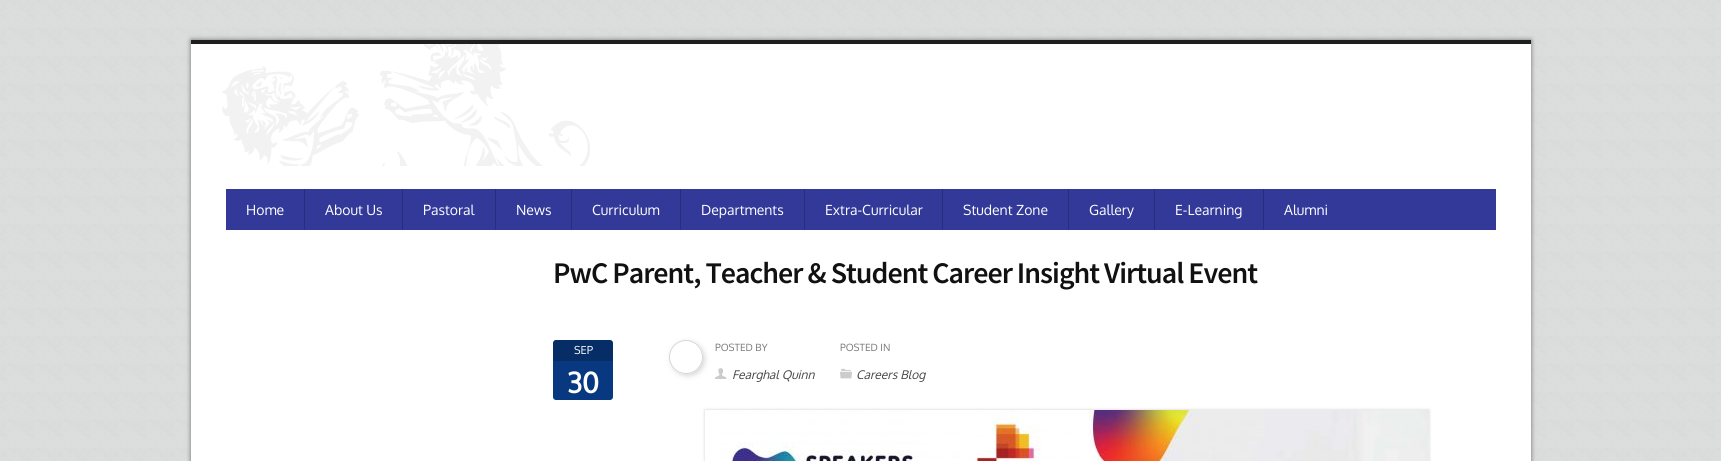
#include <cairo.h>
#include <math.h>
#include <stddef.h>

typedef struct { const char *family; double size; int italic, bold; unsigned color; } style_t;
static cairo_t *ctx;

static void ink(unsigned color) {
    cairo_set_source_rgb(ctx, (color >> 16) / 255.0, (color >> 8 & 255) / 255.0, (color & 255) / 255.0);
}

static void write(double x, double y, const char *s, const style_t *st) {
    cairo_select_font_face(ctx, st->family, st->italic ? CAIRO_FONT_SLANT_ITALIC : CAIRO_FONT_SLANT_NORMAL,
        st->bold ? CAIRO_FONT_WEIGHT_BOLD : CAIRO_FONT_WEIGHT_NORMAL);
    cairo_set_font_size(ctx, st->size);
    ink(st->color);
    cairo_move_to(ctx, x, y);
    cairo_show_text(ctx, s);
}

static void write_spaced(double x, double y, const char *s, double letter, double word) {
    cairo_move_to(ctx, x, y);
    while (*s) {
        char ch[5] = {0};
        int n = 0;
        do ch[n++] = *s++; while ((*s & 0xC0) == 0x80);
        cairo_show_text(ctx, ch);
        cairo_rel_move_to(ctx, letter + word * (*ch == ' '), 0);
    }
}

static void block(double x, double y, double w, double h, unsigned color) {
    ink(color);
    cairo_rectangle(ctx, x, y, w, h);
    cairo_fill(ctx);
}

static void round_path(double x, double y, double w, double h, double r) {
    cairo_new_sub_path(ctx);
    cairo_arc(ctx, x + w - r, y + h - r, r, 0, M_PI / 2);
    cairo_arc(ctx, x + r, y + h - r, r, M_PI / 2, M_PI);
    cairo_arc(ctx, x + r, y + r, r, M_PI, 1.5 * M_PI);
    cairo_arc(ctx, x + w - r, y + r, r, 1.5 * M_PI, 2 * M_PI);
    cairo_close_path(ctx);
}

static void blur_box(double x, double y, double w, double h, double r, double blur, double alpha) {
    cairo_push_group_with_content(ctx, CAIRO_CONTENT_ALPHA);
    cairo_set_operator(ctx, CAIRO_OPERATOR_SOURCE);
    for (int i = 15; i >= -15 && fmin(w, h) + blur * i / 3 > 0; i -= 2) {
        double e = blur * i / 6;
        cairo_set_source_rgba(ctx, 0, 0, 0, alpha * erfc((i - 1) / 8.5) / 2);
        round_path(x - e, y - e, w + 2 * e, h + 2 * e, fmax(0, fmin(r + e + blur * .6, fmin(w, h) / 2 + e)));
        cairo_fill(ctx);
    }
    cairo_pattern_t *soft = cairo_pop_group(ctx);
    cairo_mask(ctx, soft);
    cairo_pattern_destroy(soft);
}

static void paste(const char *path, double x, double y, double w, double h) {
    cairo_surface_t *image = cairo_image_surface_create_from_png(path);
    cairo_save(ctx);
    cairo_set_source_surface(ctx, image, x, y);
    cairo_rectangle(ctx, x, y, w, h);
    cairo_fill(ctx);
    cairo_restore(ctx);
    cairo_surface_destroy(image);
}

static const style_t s1 = {"Oxygen", 14, 0, 0, 0xffffff};
static const style_t s2 = {"Oxygen", 11, 0, 0, 0xffffff};
static const style_t s3 = {"Oxygen", 28, 0, 1, 0xffffff};
static const style_t s4 = {"Oxygen", 10, 0, 0, 0x777777};
static const style_t s5 = {"Oxygen", 12, 1, 0, 0x444444};

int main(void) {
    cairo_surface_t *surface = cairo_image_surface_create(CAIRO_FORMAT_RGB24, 1721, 461);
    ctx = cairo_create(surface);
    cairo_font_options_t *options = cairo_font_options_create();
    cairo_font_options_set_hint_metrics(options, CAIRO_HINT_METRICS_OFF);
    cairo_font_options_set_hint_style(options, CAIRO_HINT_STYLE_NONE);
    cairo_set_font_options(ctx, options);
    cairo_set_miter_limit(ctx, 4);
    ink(0xffffff);
    cairo_paint(ctx);
    paste("pic1.png", 0, 0, 1721, 461);
    ink(0x000000);
    blur_box(191, 40, 1340, 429, 0, 2.5, 0.5);
    block(191, 45, 1340, 416, 0xffffff);
    block(191, 40, 1340, 4, 0x1f1f1f);
    block(191, 44, 1340, 1, 0xfcfcfc);
    paste("pic2.png", 222, 44, 368, 122);
    block(226, 189, 1270, 41, 0x333999);
    block(304, 189, 1, 41, 0x292e7a);
    write(246, 215, "Home", &s1);
    block(402, 189, 1, 41, 0x292e7a);
    write(325, 215, "About Us", &s1);
    block(495, 189, 1, 41, 0x292e7a);
    write(423, 215, "Pastoral", &s1);
    block(571, 189, 1, 41, 0x292e7a);
    write(516, 215, "News", &s1);
    block(680, 189, 1, 41, 0x292e7a);
    write(592, 215, "Curriculum", &s1);
    block(804, 189, 1, 41, 0x292e7a);
    write(701, 215, "Departments", &s1);
    block(942, 189, 1, 41, 0x292e7a);
    write(825, 215, "Extra-Curricular", &s1);
    block(1068, 189, 1, 41, 0x292e7a);
    write(963, 215, "Student Zone", &s1);
    block(1154, 189, 1, 41, 0x292e7a);
    write(1089, 215, "Gallery", &s1);
    block(1263, 189, 1, 41, 0x292e7a);
    write(1175, 215, "E-Learning", &s1);
    write(1284, 215, "Alumni", &s1);
    cairo_select_font_face(ctx, "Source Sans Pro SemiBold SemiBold", CAIRO_FONT_SLANT_NORMAL, CAIRO_FONT_WEIGHT_NORMAL);
    cairo_set_font_size(ctx, 30);
    ink(0x111111);
    write_spaced(553, 283, "PwC Parent, Teacher & Student Career Insight Virtual Event", -1, 0);
    ink(0x08387f);
    round_path(553, 340, 60, 60, 3);
    cairo_fill(ctx);
    cairo_set_source_rgba(ctx, 0, 0, 0, 0.2);
    cairo_new_path(ctx);
    cairo_move_to(ctx, 556, 340);
    cairo_line_to(ctx, 610, 340);
    cairo_curve_to(ctx, 611.5, 340, 613, 341.5, 613, 343);
    cairo_line_to(ctx, 613, 361);
    cairo_line_to(ctx, 553, 361);
    cairo_line_to(ctx, 553, 343);
    cairo_curve_to(ctx, 553, 341.5, 554.5, 340, 556, 340);
    cairo_close_path(ctx);
    cairo_fill(ctx);
    write(574, 354, "SEP", &s2);
    write(567, 393, "30", &s3);
    cairo_save(ctx);
    cairo_set_fill_rule(ctx, CAIRO_FILL_RULE_EVEN_ODD);
    cairo_new_path(ctx);
    cairo_move_to(ctx, 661, 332);
    cairo_line_to(ctx, 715, 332);
    cairo_line_to(ctx, 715, 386);
    cairo_line_to(ctx, 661, 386);
    cairo_close_path(ctx);
    cairo_move_to(ctx, 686, 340);
    cairo_curve_to(ctx, 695.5, 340, 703, 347.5, 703, 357);
    cairo_curve_to(ctx, 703, 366.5, 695.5, 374, 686, 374);
    cairo_curve_to(ctx, 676.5, 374, 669, 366.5, 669, 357);
    cairo_curve_to(ctx, 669, 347.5, 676.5, 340, 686, 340);
    cairo_close_path(ctx);
    cairo_clip(ctx);
    ink(0x000000);
    blur_box(673, 344, 30, 30, 15, 3.5, 0.25);
    cairo_restore(ctx);
    cairo_arc(ctx, 686, 357, 16.5, 0, 2 * M_PI);
    ink(0xd6d6d6);
    cairo_set_line_width(ctx, 1);
    cairo_stroke(ctx);
    write(715, 351, "POSTED BY", &s4);
    paste("pic3.png", 715, 368, 12, 11);
    write(732, 379, "Fearghal Quinn", &s5);
    write(840, 351, "POSTED IN", &s4);
    paste("pic4.png", 840, 368, 12, 11);
    write(856, 379, "Careers Blog", &s5);
    cairo_save(ctx);
    cairo_set_fill_rule(ctx, CAIRO_FILL_RULE_EVEN_ODD);
    cairo_new_path(ctx);
    cairo_move_to(ctx, 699, 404);
    cairo_line_to(ctx, 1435, 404);
    cairo_line_to(ctx, 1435, 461);
    cairo_line_to(ctx, 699, 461);
    cairo_close_path(ctx);
    cairo_move_to(ctx, 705, 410);
    cairo_line_to(ctx, 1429, 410);
    cairo_line_to(ctx, 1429, 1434);
    cairo_line_to(ctx, 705, 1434);
    cairo_close_path(ctx);
    cairo_clip(ctx);
    ink(0x000000);
    blur_box(705, 410, 724, 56, 0, 1.5, 0.2);
    cairo_restore(ctx);
    paste("pic5.png", 721, 410, 708, 51);
    cairo_surface_write_to_png(surface, "screenshot.png");
    cairo_font_options_destroy(options);
    cairo_destroy(ctx);
    cairo_surface_destroy(surface);
    return 0;
}
